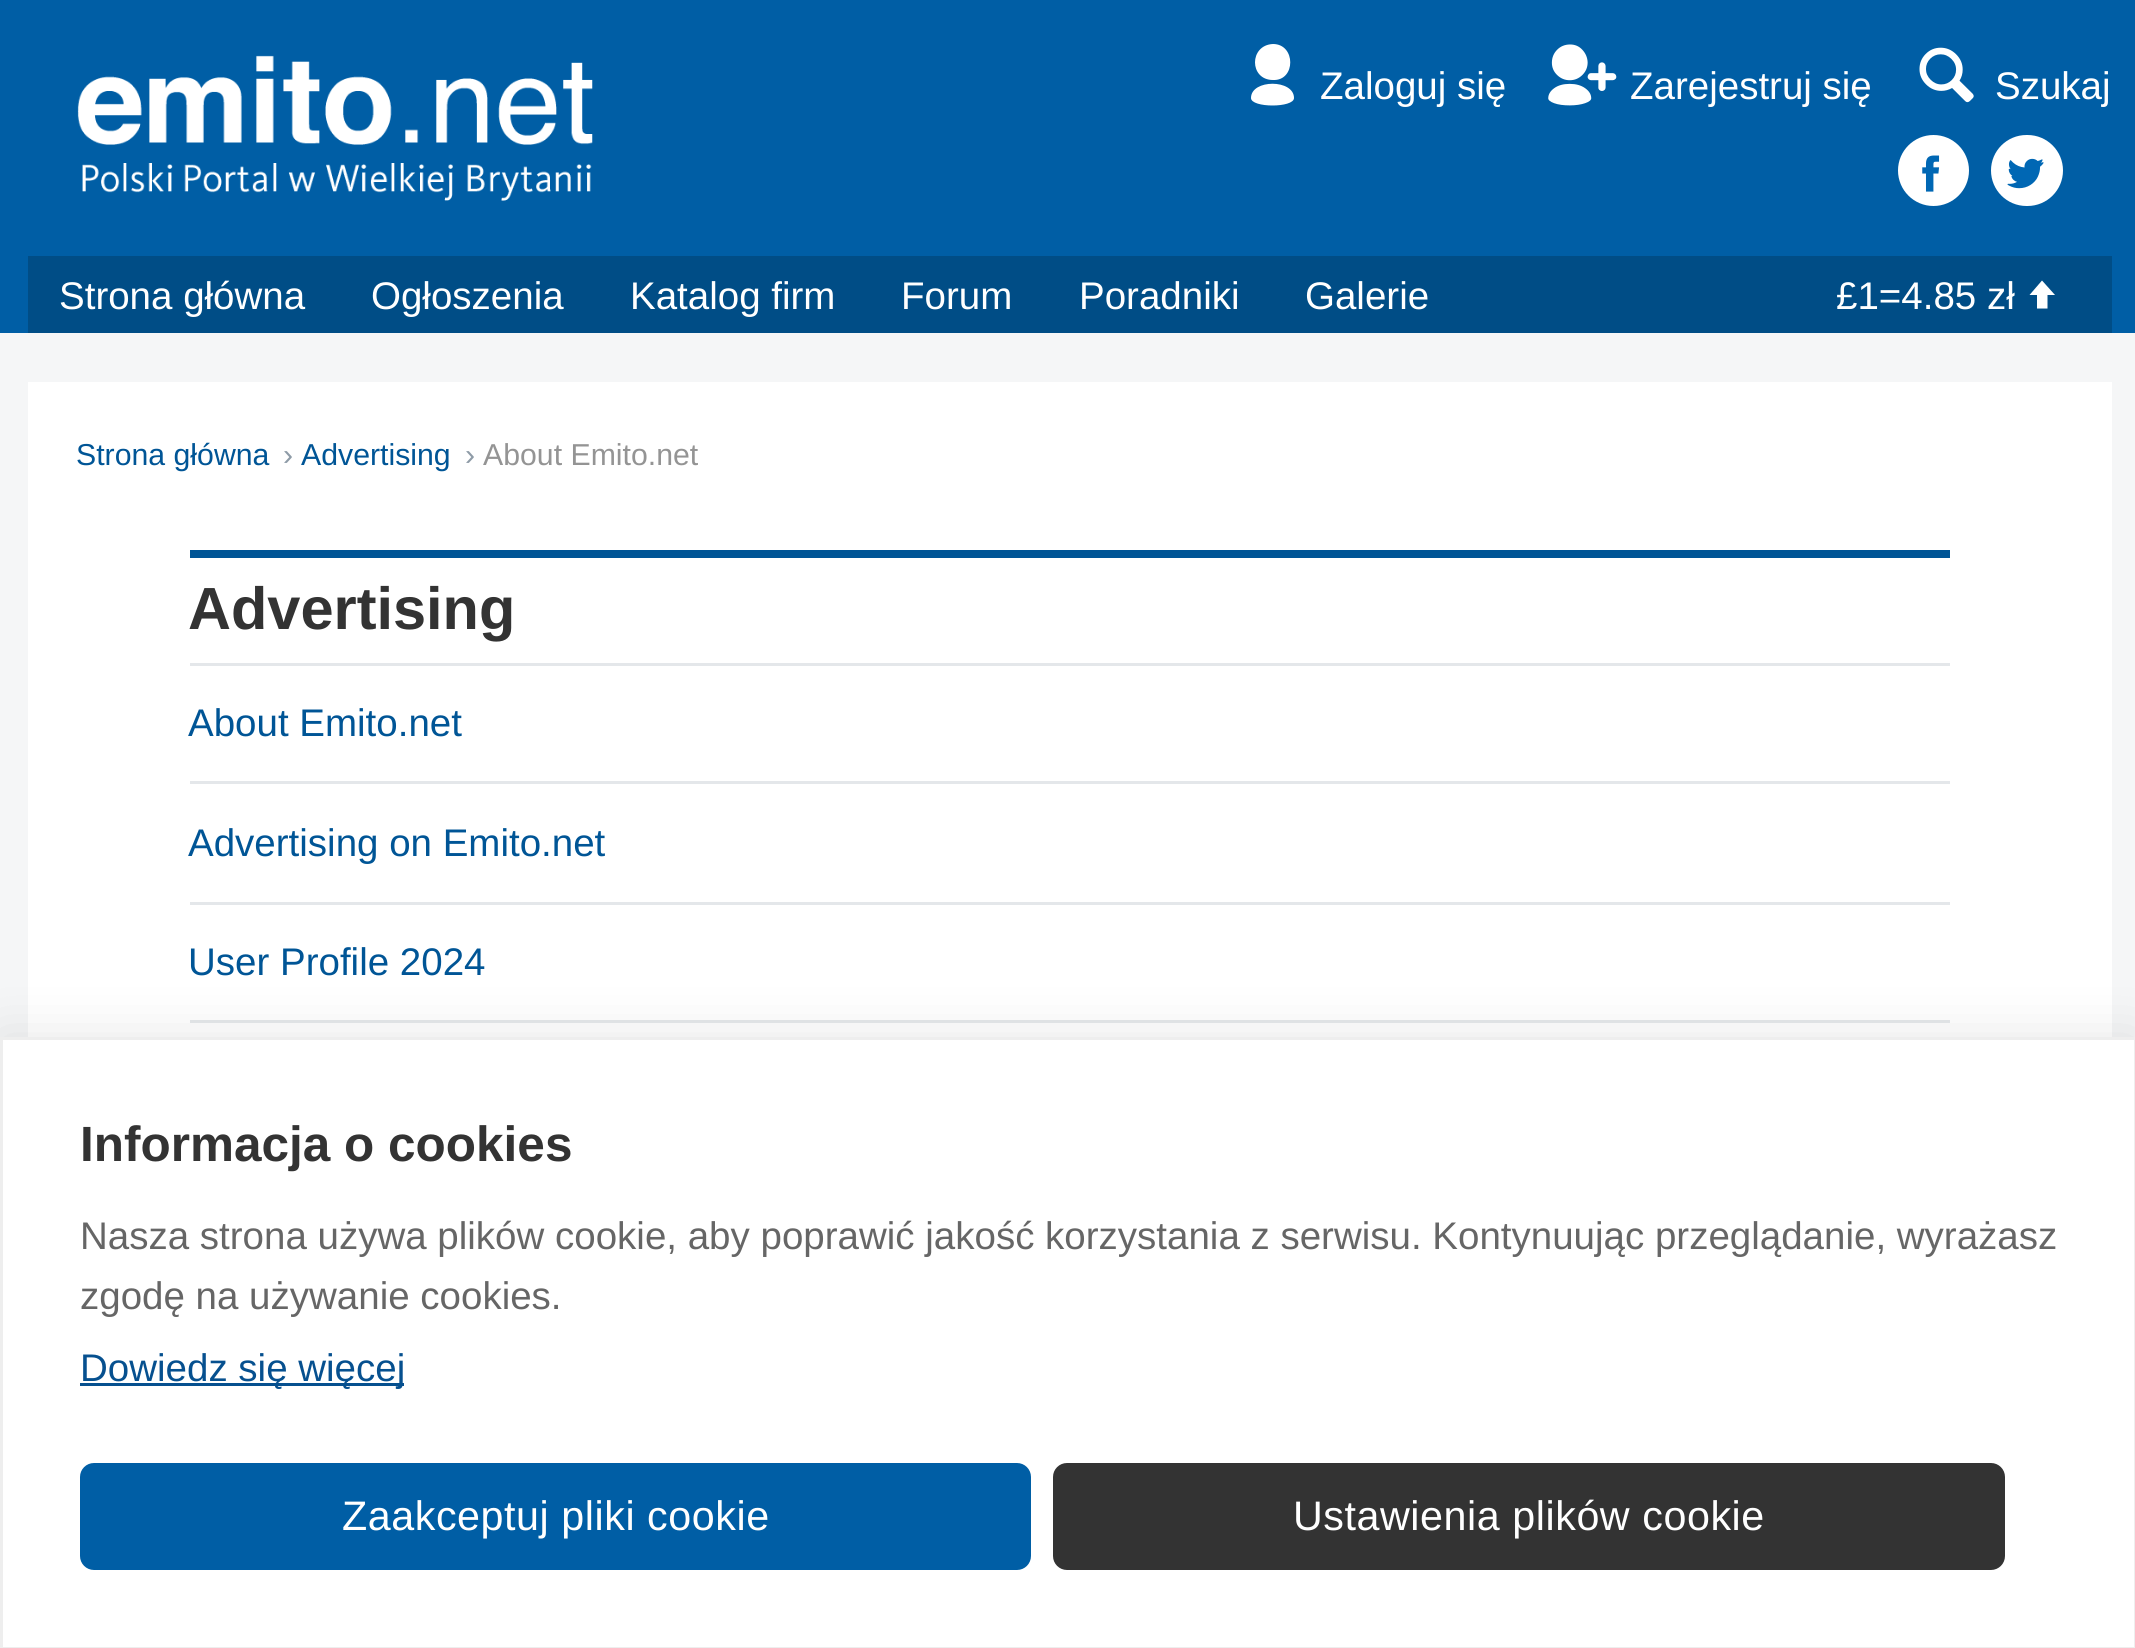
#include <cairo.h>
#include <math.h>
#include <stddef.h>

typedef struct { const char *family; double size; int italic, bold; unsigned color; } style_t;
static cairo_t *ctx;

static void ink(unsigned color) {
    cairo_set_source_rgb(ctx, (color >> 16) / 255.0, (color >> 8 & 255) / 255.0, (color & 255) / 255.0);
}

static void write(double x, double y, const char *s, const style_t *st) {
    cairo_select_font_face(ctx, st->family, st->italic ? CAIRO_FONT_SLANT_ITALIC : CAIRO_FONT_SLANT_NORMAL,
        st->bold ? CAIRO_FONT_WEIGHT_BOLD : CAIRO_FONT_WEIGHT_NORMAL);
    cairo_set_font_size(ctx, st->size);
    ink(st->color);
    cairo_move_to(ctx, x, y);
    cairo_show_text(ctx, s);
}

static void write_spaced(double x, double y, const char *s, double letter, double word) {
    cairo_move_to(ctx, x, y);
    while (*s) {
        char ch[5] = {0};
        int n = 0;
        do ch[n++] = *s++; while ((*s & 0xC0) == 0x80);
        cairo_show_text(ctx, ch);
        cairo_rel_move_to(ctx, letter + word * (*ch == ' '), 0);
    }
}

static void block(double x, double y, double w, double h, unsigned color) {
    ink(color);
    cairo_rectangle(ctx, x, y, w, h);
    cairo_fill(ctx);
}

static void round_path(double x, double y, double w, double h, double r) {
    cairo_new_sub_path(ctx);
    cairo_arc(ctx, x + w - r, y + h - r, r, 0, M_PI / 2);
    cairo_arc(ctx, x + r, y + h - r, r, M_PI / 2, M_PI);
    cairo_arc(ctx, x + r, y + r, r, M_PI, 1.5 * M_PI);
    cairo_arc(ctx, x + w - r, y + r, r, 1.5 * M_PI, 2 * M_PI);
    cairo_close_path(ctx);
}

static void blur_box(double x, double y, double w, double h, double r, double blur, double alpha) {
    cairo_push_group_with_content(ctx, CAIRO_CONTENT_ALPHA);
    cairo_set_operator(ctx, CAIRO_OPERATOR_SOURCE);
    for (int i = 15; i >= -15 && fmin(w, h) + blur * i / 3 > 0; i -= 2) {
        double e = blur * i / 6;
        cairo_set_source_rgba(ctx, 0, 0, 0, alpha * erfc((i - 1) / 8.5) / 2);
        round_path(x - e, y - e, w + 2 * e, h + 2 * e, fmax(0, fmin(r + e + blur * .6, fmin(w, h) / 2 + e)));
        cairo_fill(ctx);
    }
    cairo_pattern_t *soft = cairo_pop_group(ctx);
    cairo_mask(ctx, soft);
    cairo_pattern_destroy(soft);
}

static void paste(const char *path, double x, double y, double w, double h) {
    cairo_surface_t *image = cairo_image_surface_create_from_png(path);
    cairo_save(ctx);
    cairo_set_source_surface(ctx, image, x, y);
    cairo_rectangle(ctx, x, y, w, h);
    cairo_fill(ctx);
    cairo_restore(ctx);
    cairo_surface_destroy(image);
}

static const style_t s1 = {"Liberation Sans", 38.5, 0, 0, 0xffffff};
static const style_t s2 = {"Liberation Sans", 30.25, 0, 0, 0x005596};
static const style_t s3 = {"Liberation Sans", 30.25, 0, 0, 0x8e9ba7};
static const style_t s4 = {"Liberation Sans", 30.25, 0, 0, 0x949494};
static const style_t s5 = {"Liberation Sans", 59.5, 0, 1, 0x333333};
static const style_t s6 = {"Liberation Sans", 38.5, 0, 0, 0x005596};
static const style_t s7 = {"Liberation Sans", 49.5, 0, 1, 0x333333};
static const style_t s8 = {"Liberation Sans", 38.5, 0, 0, 0x666666};
static const style_t s9 = {"Liberation Sans", 38.5, 0, 0, 0x06508f};

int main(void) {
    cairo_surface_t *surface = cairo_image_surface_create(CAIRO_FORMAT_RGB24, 2135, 1648);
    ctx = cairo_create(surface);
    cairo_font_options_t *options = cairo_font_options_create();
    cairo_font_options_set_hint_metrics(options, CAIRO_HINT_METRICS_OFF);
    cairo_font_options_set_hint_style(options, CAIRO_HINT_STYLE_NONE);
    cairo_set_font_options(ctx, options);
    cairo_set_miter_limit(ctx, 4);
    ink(0xf5f6f7);
    cairo_paint(ctx);
    block(0, 0, 2135, 333, 0x005ea5);
    paste("pic1.png", 77, 55, 516, 146);
    ink(0xffffff);
    cairo_new_path(ctx);
    cairo_move_to(ctx, 1273, 44);
    cairo_curve_to(ctx, 1296, 44, 1296, 81, 1273, 80);
    cairo_curve_to(ctx, 1249, 80, 1249, 45, 1273, 44);
    cairo_close_path(ctx);
    cairo_move_to(ctx, 1251, 98);
    cairo_curve_to(ctx, 1251, 79, 1294, 79, 1294, 98);
    cairo_curve_to(ctx, 1294, 108, 1251, 108, 1251, 98);
    cairo_close_path(ctx);
    cairo_fill(ctx);
    write(1320, 99, "Zaloguj się", &s1);
    paste("pic2.png", 1548, 44, 69, 62);
    write(1630, 99, "Zarejestruj się", &s1);
    paste("pic3.png", 1919, 47, 55, 56);
    write(1995, 99, "Szukaj", &s1);
    cairo_new_path(ctx);
    cairo_arc(ctx, 1933.5, 170.5, 35.5, 0, 2 * M_PI);
    cairo_fill(ctx);
    paste("pic4.png", 1922, 155, 18, 37);
    round_path(1991, 135, 72, 71, 35.5);
    cairo_fill(ctx);
    paste("pic5.png", 2007, 158, 37, 31);
    block(28, 256, 2084, 77, 0x004d86);
    write(59, 309, "Strona główna", &s1);
    write(371, 309, "Ogłoszenia", &s1);
    write(630, 309, "Katalog firm", &s1);
    write(901, 309, "Forum", &s1);
    write(1079, 309, "Poradniki", &s1);
    write(1305, 309, "Galerie", &s1);
    write(1836, 309, "£1=4.85 zł", &s1);
    cairo_new_path(ctx);
    cairo_move_to(ctx, 2055, 295);
    cairo_line_to(ctx, 2047.5, 295);
    cairo_line_to(ctx, 2047.5, 308.5);
    cairo_line_to(ctx, 2037, 308.5);
    cairo_line_to(ctx, 2037, 295);
    cairo_line_to(ctx, 2029.5, 295);
    cairo_line_to(ctx, 2042, 280.5);
    cairo_close_path(ctx);
    cairo_fill(ctx);
    block(28, 382, 2084, 655, 0xffffff);
    write(76, 465, "Strona główna", &s2);
    write(283, 465, "›", &s3);
    write(301, 465, "Advertising", &s2);
    write(465, 465, "›", &s3);
    write(483, 465, "About Emito.net", &s4);
    block(190, 550, 1760, 8, 0x005596);
    block(190, 663, 1760, 3, 0xe4e7ea);
    write(188, 629, "Advertising", &s5);
    block(190, 781, 1760, 3, 0xe4e7ea);
    write(188, 736, "About Emito.net", &s6);
    block(190, 902, 1760, 3, 0xe4e7ea);
    write(188, 856, "Advertising on Emito.net", &s6);
    block(190, 1020, 1760, 3, 0xe4e7ea);
    write(188, 975, "User Profile 2024", &s6);
    ink(0x000000);
    blur_box(0, 1037, 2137, 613, 0, 27.5, 0.1);
    ink(0xffffff);
    cairo_rectangle(ctx, 1.5, 1038.5, 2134, 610);
    cairo_fill_preserve(ctx);
    ink(0xeeeeee);
    cairo_set_line_width(ctx, 3);
    cairo_stroke(ctx);
    write(80, 1161, "Informacja o cookies", &s7);
    write(80, 1249, "Nasza strona używa plików cookie, aby poprawić jakość korzystania z serwisu. Kontynuując przeglądanie, wyrażasz", &s8);
    write(80, 1309, "zgodę na używanie cookies.", &s8);
    block(80, 1383, 324, 3, 0x06508f);
    write(80, 1381, "Dowiedz się więcej", &s9);
    ink(0x005ea5);
    round_path(80, 1463, 951, 107, 14);
    cairo_fill(ctx);
    cairo_set_font_size(ctx, 41.25);
    ink(0xffffff);
    write_spaced(342, 1530, "Zaakceptuj pliki cookie", 0.55, 0);
    ink(0x333333);
    round_path(1053, 1463, 952, 107, 14);
    cairo_fill(ctx);
    ink(0xffffff);
    write_spaced(1293, 1530, "Ustawienia plików cookie", 0.55, 0);
    cairo_surface_write_to_png(surface, "screenshot.png");
    cairo_font_options_destroy(options);
    cairo_destroy(ctx);
    cairo_surface_destroy(surface);
    return 0;
}
